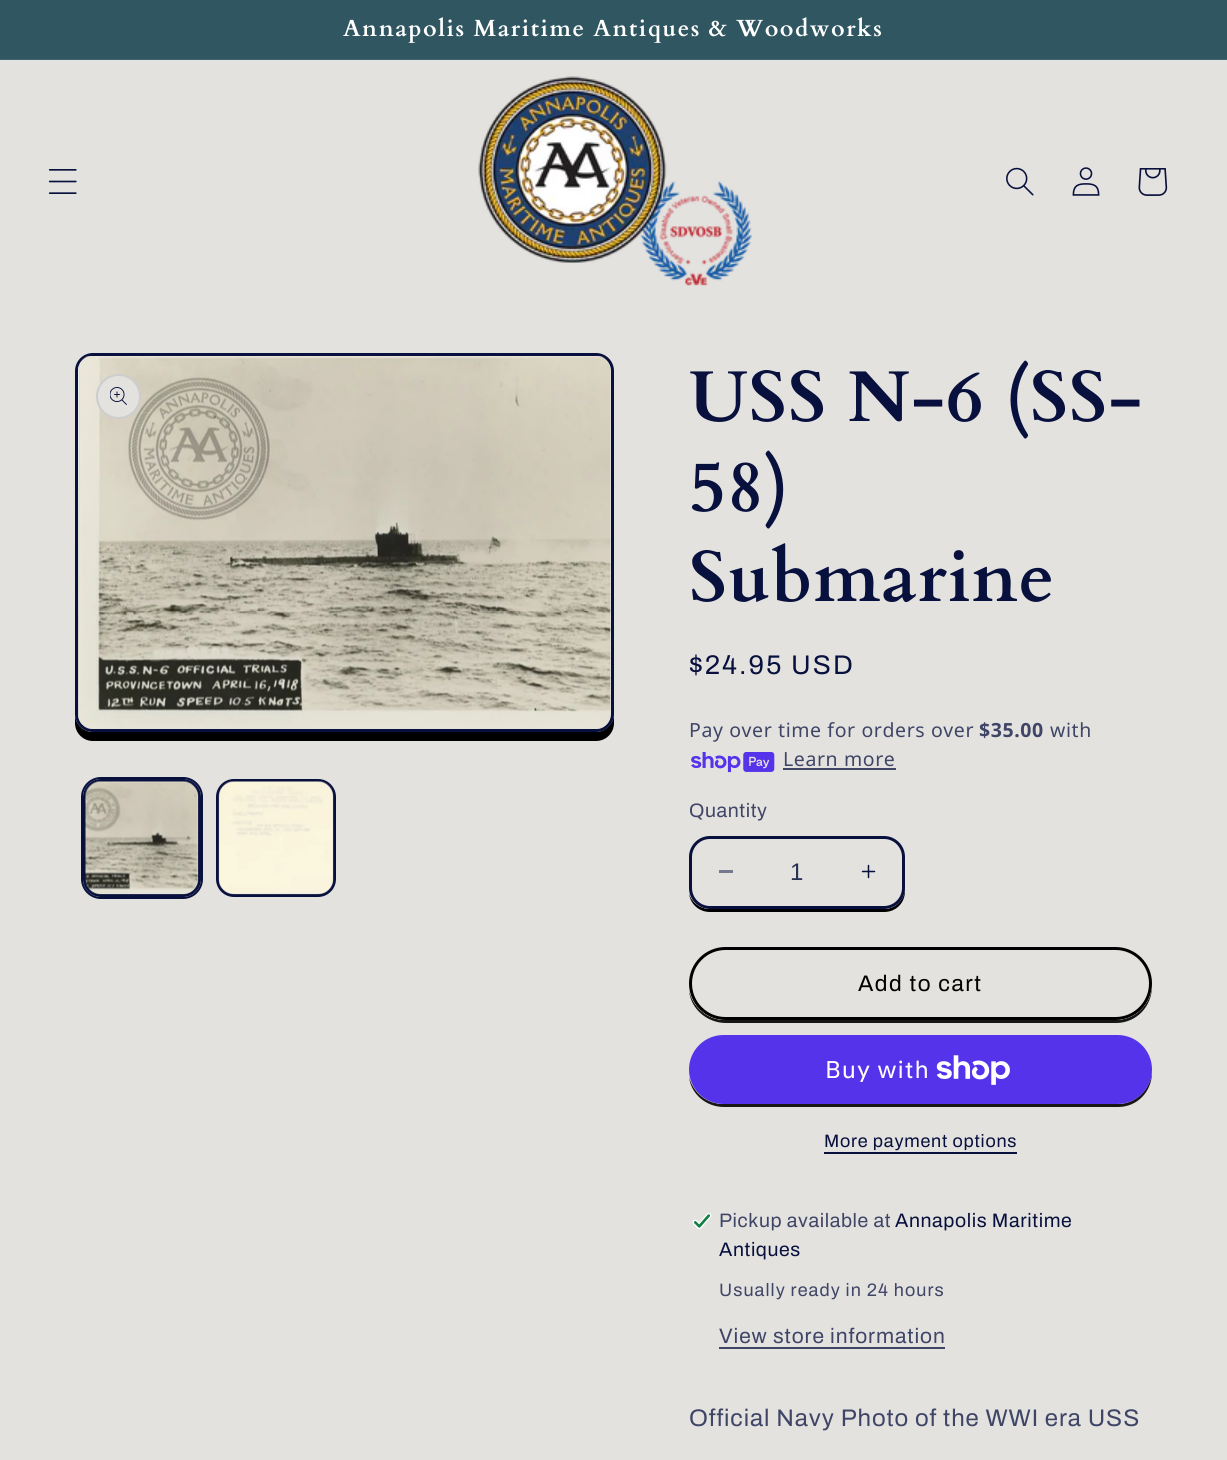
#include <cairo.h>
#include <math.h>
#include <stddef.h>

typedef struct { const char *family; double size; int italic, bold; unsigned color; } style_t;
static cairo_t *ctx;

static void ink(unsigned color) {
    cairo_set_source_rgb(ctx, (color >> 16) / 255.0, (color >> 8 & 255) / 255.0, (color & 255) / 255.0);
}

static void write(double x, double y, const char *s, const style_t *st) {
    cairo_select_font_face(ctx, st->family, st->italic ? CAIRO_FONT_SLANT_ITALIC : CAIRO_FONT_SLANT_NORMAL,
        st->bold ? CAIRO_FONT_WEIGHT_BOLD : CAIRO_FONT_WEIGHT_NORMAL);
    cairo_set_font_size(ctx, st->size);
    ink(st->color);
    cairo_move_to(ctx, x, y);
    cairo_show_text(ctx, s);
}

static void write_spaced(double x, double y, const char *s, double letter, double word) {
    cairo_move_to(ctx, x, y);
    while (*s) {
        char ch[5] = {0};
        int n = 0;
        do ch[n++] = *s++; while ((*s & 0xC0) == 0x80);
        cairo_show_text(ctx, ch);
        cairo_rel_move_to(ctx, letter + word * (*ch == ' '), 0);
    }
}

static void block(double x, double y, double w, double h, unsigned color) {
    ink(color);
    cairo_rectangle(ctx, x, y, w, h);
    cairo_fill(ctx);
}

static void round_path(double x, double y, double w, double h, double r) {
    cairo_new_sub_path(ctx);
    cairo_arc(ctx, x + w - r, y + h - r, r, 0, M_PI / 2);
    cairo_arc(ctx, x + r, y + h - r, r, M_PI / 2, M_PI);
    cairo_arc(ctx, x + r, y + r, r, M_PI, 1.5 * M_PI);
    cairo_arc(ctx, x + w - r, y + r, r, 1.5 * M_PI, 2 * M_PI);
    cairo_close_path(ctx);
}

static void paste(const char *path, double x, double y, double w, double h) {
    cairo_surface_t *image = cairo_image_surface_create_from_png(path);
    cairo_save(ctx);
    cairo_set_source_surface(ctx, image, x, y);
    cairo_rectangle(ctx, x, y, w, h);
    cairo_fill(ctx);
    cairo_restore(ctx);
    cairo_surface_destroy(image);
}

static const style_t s1 = {"Liberation Sans", 24, 0, 0, 0x293055};

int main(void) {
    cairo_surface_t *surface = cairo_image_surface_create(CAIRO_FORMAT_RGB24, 1227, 1460);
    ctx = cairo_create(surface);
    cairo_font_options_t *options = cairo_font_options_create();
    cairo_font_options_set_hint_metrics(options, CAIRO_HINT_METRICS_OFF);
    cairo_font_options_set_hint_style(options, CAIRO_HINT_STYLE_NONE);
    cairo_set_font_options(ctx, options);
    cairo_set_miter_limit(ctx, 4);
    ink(0xe3e2df);
    cairo_paint(ctx);
    block(0, 60, 1227, 1, 0xe5e4e2);
    block(0, 0, 1227, 59, 0x2f5661);
    block(0, 59, 1227, 1, 0x40646e);
    cairo_select_font_face(ctx, "Cardo", CAIRO_FONT_SLANT_NORMAL, CAIRO_FONT_WEIGHT_BOLD);
    cairo_set_font_size(ctx, 23.4);
    ink(0xffffff);
    write_spaced(343, 36, "Annapolis Maritime Antiques & Woodworks", 1.5, 0);
    paste("pic1.png", 48, 169, 29, 25);
    paste("pic2.png", 478, 76, 274, 210);
    paste("pic3.png", 1006, 167, 28, 29);
    paste("pic4.png", 1072, 167, 28, 29);
    paste("pic5.png", 1138, 168, 30, 28);
    ink(0x000000);
    cairo_new_path(ctx);
    cairo_move_to(ctx, 75, 714);
    cairo_line_to(ctx, 75, 723);
    cairo_curve_to(ctx, 75, 733, 83, 741, 93, 741);
    cairo_line_to(ctx, 596, 741);
    cairo_curve_to(ctx, 606, 741, 614, 733, 614, 723);
    cairo_line_to(ctx, 614, 380);
    cairo_line_to(ctx, 614, 376);
    cairo_line_to(ctx, 614, 714);
    cairo_curve_to(ctx, 614, 724, 605, 732, 596, 732);
    cairo_line_to(ctx, 93, 732);
    cairo_curve_to(ctx, 83, 732, 75, 724, 75, 714);
    cairo_close_path(ctx);
    cairo_fill(ctx);
    ink(0xe3e2df);
    round_path(76.5, 354.5, 536, 376, 16.5);
    cairo_fill_preserve(ctx);
    ink(0x08103d);
    cairo_set_line_width(ctx, 3);
    cairo_stroke(ctx);
    paste("pic6.png", 78, 356, 533, 373);
    ink(0xe3e2df);
    cairo_arc(ctx, 118.5, 396.5, 22.5, 0, 2 * M_PI);
    cairo_fill(ctx);
    cairo_arc(ctx, 118.5, 396.5, 21.5, 0, 2 * M_PI);
    cairo_set_source_rgba(ctx, 0.031, 0.063, 0.239, 0.1);
    cairo_set_line_width(ctx, 2);
    cairo_stroke(ctx);
    paste("pic7.png", 110, 387, 17, 18);
    round_path(82, 778, 120, 120, 19);
    ink(0x08103d);
    cairo_stroke(ctx);
    round_path(84.5, 780.5, 115, 115, 16.5);
    cairo_set_line_width(ctx, 3);
    cairo_stroke(ctx);
    paste("pic8.png", 85, 781, 114, 114);
    round_path(217.5, 780.5, 117, 115, 16.5);
    cairo_stroke(ctx);
    paste("pic9.png", 218, 781, 116, 114);
    cairo_set_font_size(ctx, 72);
    write_spaced(689, 421, "USS N-6 (SS-", 1, 0);
    write_spaced(689, 511, "58)", 1, 0);
    write_spaced(689, 601, "Submarine", 1, 0);
    cairo_select_font_face(ctx, "Archivo", CAIRO_FONT_SLANT_NORMAL, CAIRO_FONT_WEIGHT_NORMAL);
    cairo_set_font_size(ctx, 27);
    write_spaced(689, 674, "$24.95 USD", 2, 0);
    cairo_select_font_face(ctx, "Noto Sans", CAIRO_FONT_SLANT_NORMAL, CAIRO_FONT_WEIGHT_NORMAL);
    cairo_set_font_size(ctx, 19.5);
    ink(0x3f4566);
    write_spaced(689, 737, "Pay over time for orders over", 0.6, 0);
    cairo_select_font_face(ctx, "Noto Sans", CAIRO_FONT_SLANT_NORMAL, CAIRO_FONT_WEIGHT_BOLD);
    write_spaced(979, 737, "$35.00", 0.6, 0);
    cairo_select_font_face(ctx, "Noto Sans", CAIRO_FONT_SLANT_NORMAL, CAIRO_FONT_WEIGHT_NORMAL);
    write_spaced(1050, 737, "with", 0.6, 0);
    paste("pic10.png", 691, 752, 84, 21);
    write_spaced(783, 766, "Learn more", 0.6, 0);
    block(783, 768, 113, 2, 0x3f4566);
    cairo_select_font_face(ctx, "Archivo", CAIRO_FONT_SLANT_NORMAL, CAIRO_FONT_WEIGHT_NORMAL);
    write_spaced(689, 817, "Quantity", 0.6, 0);
    ink(0x000000);
    cairo_new_path(ctx);
    cairo_move_to(ctx, 689, 893);
    cairo_curve_to(ctx, 690, 904, 699, 912, 710, 912);
    cairo_line_to(ctx, 884, 912);
    cairo_curve_to(ctx, 896, 912, 905, 903, 905, 891);
    cairo_line_to(ctx, 905, 860);
    cairo_line_to(ctx, 904, 855);
    cairo_line_to(ctx, 904, 888);
    cairo_curve_to(ctx, 904, 900, 895, 909, 884, 909);
    cairo_line_to(ctx, 710, 909);
    cairo_curve_to(ctx, 700, 909, 691, 902, 689, 893);
    cairo_close_path(ctx);
    cairo_fill(ctx);
    ink(0xe3e2df);
    round_path(689, 836, 216, 73, 21);
    cairo_fill(ctx);
    block(719, 870, 14, 3, 0x76798e);
    paste("pic11.png", 861, 864, 15, 15);
    round_path(690.5, 837.5, 213, 70, 19.5);
    ink(0x08103d);
    cairo_stroke(ctx);
    write(790, 880, "1", &s1);
    ink(0x171716);
    cairo_new_path(ctx);
    cairo_move_to(ctx, 689, 991);
    cairo_curve_to(ctx, 691, 1009, 707, 1023, 726, 1023);
    cairo_line_to(ctx, 1116, 1023);
    cairo_curve_to(ctx, 1136, 1023, 1152, 1007, 1152, 986);
    cairo_line_to(ctx, 1152, 985);
    cairo_curve_to(ctx, 1151, 1004, 1135, 1020, 1115, 1020);
    cairo_line_to(ctx, 725, 1020);
    cairo_curve_to(ctx, 707, 1020, 693, 1007, 689, 991);
    cairo_close_path(ctx);
    cairo_fill(ctx);
    ink(0xe3e2df);
    round_path(689, 947, 463, 73, 36.5);
    cairo_fill(ctx);
    round_path(690.5, 948.5, 460, 70, 35);
    cairo_stroke(ctx);
    round_path(690.5, 948.5, 460, 70, 35);
    ink(0x000000);
    cairo_stroke(ctx);
    cairo_select_font_face(ctx, "Archivo", CAIRO_FONT_SLANT_NORMAL, CAIRO_FONT_WEIGHT_NORMAL);
    cairo_set_font_size(ctx, 22.5);
    write_spaced(858, 991, "Add to cart", 1.5, 0);
    ink(0x171716);
    cairo_new_path(ctx);
    cairo_move_to(ctx, 689, 1077);
    cairo_curve_to(ctx, 691, 1094, 706, 1107, 724, 1107);
    cairo_line_to(ctx, 1118, 1107);
    cairo_curve_to(ctx, 1137, 1107, 1152, 1092, 1152, 1072);
    cairo_line_to(ctx, 1152, 1071);
    cairo_curve_to(ctx, 1151, 1089, 1136, 1104, 1118, 1104);
    cairo_line_to(ctx, 723, 1104);
    cairo_curve_to(ctx, 706, 1104, 693, 1092, 689, 1077);
    cairo_close_path(ctx);
    cairo_fill(ctx);
    ink(0x5433eb);
    round_path(689, 1035, 463, 69, 34.5);
    cairo_fill(ctx);
    cairo_select_font_face(ctx, "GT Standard", CAIRO_FONT_SLANT_NORMAL, CAIRO_FONT_WEIGHT_NORMAL);
    cairo_set_font_size(ctx, 24);
    ink(0xffffff);
    write_spaced(825, 1078, "Buy with", 0.9, 0);
    paste("pic12.png", 936, 1055, 74, 30);
    cairo_select_font_face(ctx, "Archivo", CAIRO_FONT_SLANT_NORMAL, CAIRO_FONT_WEIGHT_NORMAL);
    cairo_set_font_size(ctx, 18);
    ink(0x08103d);
    write_spaced(824, 1147, "More payment options", 0.75, 0);
    block(824, 1152, 193, 2, 0x08103d);
    paste("pic13.png", 692, 1213, 20, 16);
    cairo_set_font_size(ctx, 19.5);
    ink(0x3f4566);
    write_spaced(719, 1227, "Pickup available at", 0.6, 0);
    ink(0x08103d);
    write_spaced(895, 1227, "Annapolis Maritime", 0.6, 0);
    write_spaced(719, 1256, "Antiques", 0.6, 0);
    cairo_set_font_size(ctx, 18);
    ink(0x3f4566);
    write_spaced(719, 1296, "Usually ready in 24 hours", 1.05, 0);
    cairo_set_font_size(ctx, 21);
    write_spaced(719, 1343, "View store information", 0.9, 0);
    block(719, 1347, 226, 2, 0x3f4566);
    cairo_set_font_size(ctx, 24);
    write_spaced(689, 1426, "Official Navy Photo of the WWI era USS", 0.9, 0);
    cairo_surface_write_to_png(surface, "screenshot.png");
    cairo_font_options_destroy(options);
    cairo_destroy(ctx);
    cairo_surface_destroy(surface);
    return 0;
}
